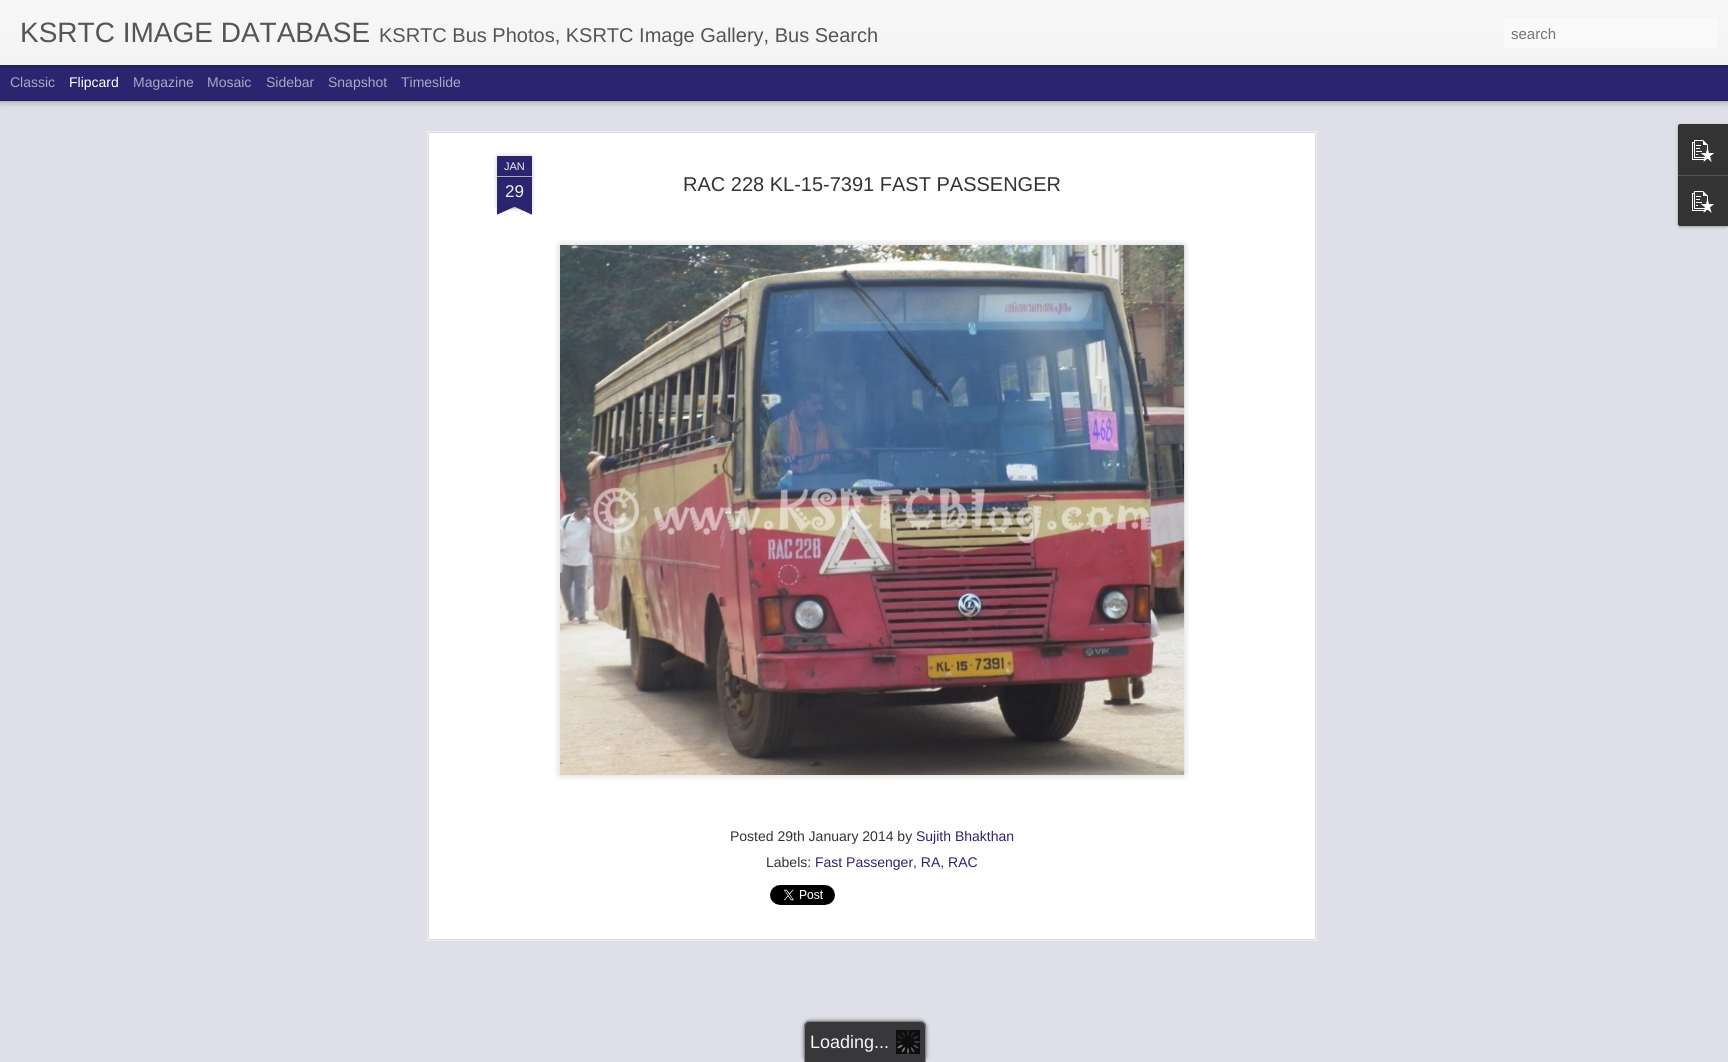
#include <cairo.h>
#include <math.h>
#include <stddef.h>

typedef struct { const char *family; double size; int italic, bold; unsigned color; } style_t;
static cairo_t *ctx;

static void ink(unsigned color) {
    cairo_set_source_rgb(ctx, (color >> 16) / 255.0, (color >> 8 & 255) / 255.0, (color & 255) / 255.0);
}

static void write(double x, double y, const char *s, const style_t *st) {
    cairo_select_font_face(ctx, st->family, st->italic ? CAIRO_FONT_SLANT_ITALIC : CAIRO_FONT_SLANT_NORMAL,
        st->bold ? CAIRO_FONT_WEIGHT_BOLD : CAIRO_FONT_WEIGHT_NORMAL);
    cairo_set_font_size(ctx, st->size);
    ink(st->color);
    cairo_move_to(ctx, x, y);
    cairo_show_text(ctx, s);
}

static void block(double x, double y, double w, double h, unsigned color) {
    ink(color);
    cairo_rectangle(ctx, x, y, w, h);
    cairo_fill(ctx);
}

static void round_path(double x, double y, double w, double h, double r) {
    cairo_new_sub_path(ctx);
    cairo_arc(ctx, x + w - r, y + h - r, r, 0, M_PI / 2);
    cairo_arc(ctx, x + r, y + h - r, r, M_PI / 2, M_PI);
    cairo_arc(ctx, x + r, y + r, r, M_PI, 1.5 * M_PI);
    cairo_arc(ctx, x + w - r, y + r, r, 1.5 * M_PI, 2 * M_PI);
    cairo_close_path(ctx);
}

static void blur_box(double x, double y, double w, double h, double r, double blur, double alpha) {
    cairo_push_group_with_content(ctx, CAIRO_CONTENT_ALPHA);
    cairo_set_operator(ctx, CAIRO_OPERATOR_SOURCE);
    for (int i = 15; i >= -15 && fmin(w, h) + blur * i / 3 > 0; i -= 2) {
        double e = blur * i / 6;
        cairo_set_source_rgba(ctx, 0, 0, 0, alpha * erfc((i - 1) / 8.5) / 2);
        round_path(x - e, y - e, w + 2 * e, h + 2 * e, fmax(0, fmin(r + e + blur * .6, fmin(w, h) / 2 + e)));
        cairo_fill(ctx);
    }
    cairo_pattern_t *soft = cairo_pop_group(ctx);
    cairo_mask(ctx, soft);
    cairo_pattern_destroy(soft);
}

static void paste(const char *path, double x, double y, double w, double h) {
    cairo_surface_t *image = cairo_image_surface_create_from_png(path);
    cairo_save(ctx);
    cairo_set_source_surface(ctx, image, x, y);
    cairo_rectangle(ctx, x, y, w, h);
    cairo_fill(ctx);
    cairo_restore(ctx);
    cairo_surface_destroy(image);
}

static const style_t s1 = {"Liberation Sans", 28, 0, 0, 0x555555};
static const style_t s2 = {"Liberation Sans", 20, 0, 0, 0x555555};
static const style_t s3 = {"Liberation Sans", 15, 0, 0, 0x757575};
static const style_t s4 = {"Liberation Sans", 14, 0, 0, 0xaaa8c5};
static const style_t s5 = {"Liberation Sans", 14, 0, 0, 0xffffff};
static const style_t s6 = {"Liberation Sans", 11, 0, 0, 0xeeeeee};
static const style_t s7 = {"Liberation Sans", 17, 0, 0, 0xeeeeee};
static const style_t s8 = {"Liberation Sans", 20, 0, 0, 0x333333};
static const style_t s9 = {"Liberation Sans", 14, 0, 0, 0x333333};
static const style_t s10 = {"Liberation Sans", 14, 0, 0, 0x2b256f};
static const style_t s11 = {"Liberation Sans", 18, 0, 0, 0xf7f7fa};

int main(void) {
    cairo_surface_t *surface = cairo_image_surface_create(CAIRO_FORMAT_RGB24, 1728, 1062);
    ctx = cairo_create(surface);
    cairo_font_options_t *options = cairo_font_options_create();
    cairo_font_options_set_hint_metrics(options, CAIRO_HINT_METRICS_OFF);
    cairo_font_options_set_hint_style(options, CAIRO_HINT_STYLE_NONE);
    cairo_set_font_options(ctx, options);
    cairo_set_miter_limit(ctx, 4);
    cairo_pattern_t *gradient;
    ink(0x2b256f);
    cairo_paint(ctx);
    block(0, 101, 1728, 961, 0xdfdfea);
    ink(0x000000);
    blur_box(0, 65, 1728, 35, 0, 4, 0.5);
    block(0, 65, 1728, 35, 0x2b256f);
    ink(0x000000);
    blur_box(0, 0, 1728, 65, 0, 2.5, 0.3);
    gradient = cairo_pattern_create_linear(0, 0, 0, 65);
    cairo_pattern_add_color_stop_rgba(gradient, 0, 0.969, 0.969, 0.969, 1);
    cairo_pattern_add_color_stop_rgba(gradient, 1, 0.957, 0.957, 0.957, 1);
    cairo_set_source(ctx, gradient);
    cairo_pattern_destroy(gradient);
    cairo_rectangle(ctx, 0, 0, 1728, 65);
    cairo_fill(ctx);
    write(20, 42, "KSRTC IMAGE DATABASE", &s1);
    write(379, 42, "KSRTC Bus Photos, KSRTC Image Gallery, Bus Search", &s2);
    ink(0xfafafa);
    round_path(1504, 18, 214, 30, 3);
    cairo_fill(ctx);
    write(1511, 39, "search", &s3);
    write(10, 87, "Classic", &s4);
    write(69, 87, "Flipcard", &s5);
    write(133, 87, "Magazine", &s4);
    write(207, 87, "Mosaic", &s4);
    write(266, 87, "Sidebar", &s4);
    write(328, 87, "Snapshot", &s4);
    write(401, 87, "Timeslide", &s4);
    block(427, 131, 890, 810, 0xffffff);
    paste("pic1.png", 427, 131, 890, 810);
    ink(0x000000);
    blur_box(497, 177, 35, 30, 0, 2.5, 0.2);
    block(497, 177, 35, 30, 0x2b256f);
    ink(0x000000);
    blur_box(497, 156, 35, 21, 1, 2.5, 0.2);
    ink(0x2b256f);
    cairo_new_path(ctx);
    cairo_move_to(ctx, 498, 156);
    cairo_line_to(ctx, 531, 156);
    cairo_curve_to(ctx, 531.5, 156, 532, 156.5, 532, 157);
    cairo_line_to(ctx, 532, 177);
    cairo_line_to(ctx, 497, 177);
    cairo_line_to(ctx, 497, 157);
    cairo_curve_to(ctx, 497, 156.5, 497.5, 156, 498, 156);
    cairo_close_path(ctx);
    cairo_fill(ctx);
    block(497, 176, 35, 1, 0xaaa8c5);
    write(504, 170, "JAN", &s6);
    write(505, 197, "29", &s7);
    cairo_save(ctx);
    cairo_rectangle(ctx, 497, 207, 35, 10);
    cairo_clip(ctx);
    ink(0x000000);
    blur_box(488, 197, 50, 10, 0, 2.5, 0.2);
    cairo_restore(ctx);
    cairo_save(ctx);
    cairo_rectangle(ctx, 497, 207, 35, 10);
    cairo_clip(ctx);
    ink(0x2b256f);
    cairo_new_path(ctx);
    cairo_move_to(ctx, 488, 208);
    cairo_line_to(ctx, 534, 187);
    cairo_line_to(ctx, 538, 196);
    cairo_line_to(ctx, 492, 217);
    cairo_close_path(ctx);
    cairo_fill(ctx);
    cairo_restore(ctx);
    cairo_save(ctx);
    cairo_rectangle(ctx, 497, 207, 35, 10);
    cairo_clip(ctx);
    ink(0x000000);
    blur_box(491, 197, 50, 10, 0, 2.5, 0.2);
    cairo_restore(ctx);
    cairo_save(ctx);
    cairo_rectangle(ctx, 497, 207, 35, 10);
    cairo_clip(ctx);
    ink(0x2b256f);
    cairo_new_path(ctx);
    cairo_move_to(ctx, 495, 187);
    cairo_line_to(ctx, 541, 208);
    cairo_line_to(ctx, 537, 217);
    cairo_line_to(ctx, 491, 196);
    cairo_close_path(ctx);
    cairo_fill(ctx);
    cairo_restore(ctx);
    write(683, 191, "RAC 228 KL-15-7391 FAST PASSENGER", &s8);
    paste("pic2.png", 555, 240, 634, 540);
    paste("pic3.png", 560, 245, 625, 530);
    write(730, 841, "Posted 29th January 2014 by", &s9);
    write(916, 841, "Sujith Bhakthan", &s10);
    write(766, 867, "Labels:", &s9);
    write(815, 867, "Fast Passenger, RA, RAC", &s10);
    paste("pic4.png", 770, 885, 65, 20);
    ink(0x000000);
    blur_box(1678, 125, 50, 102, 2, 1.5, 0.3);
    ink(0x333333);
    cairo_new_path(ctx);
    cairo_move_to(ctx, 1680, 124);
    cairo_line_to(ctx, 1728, 124);
    cairo_line_to(ctx, 1728, 175);
    cairo_line_to(ctx, 1678, 175);
    cairo_line_to(ctx, 1678, 126);
    cairo_curve_to(ctx, 1678, 125, 1679, 124, 1680, 124);
    cairo_close_path(ctx);
    cairo_fill(ctx);
    paste("pic5.png", 1692, 140, 22, 22);
    cairo_new_path(ctx);
    cairo_move_to(ctx, 1678, 175);
    cairo_line_to(ctx, 1728, 175);
    cairo_line_to(ctx, 1728, 226);
    cairo_line_to(ctx, 1680, 226);
    cairo_curve_to(ctx, 1679, 226, 1678, 225, 1678, 224);
    cairo_close_path(ctx);
    cairo_fill(ctx);
    block(1678, 175, 50, 1, 0x585858);
    paste("pic5.png", 1692, 191, 22, 22);
    ink(0x5e5e61);
    blur_box(804, 1021, 122, 41, 6, 2, 1);
    ink(0x38383b);
    cairo_new_path(ctx);
    cairo_move_to(ctx, 810, 1021);
    cairo_line_to(ctx, 920, 1021);
    cairo_curve_to(ctx, 923.5, 1021, 926, 1023.5, 926, 1027);
    cairo_line_to(ctx, 926, 1062);
    cairo_line_to(ctx, 804, 1062);
    cairo_line_to(ctx, 804, 1027);
    cairo_curve_to(ctx, 804, 1023.5, 806.5, 1021, 810, 1021);
    cairo_close_path(ctx);
    cairo_fill(ctx);
    ink(0x848487);
    cairo_set_fill_rule(ctx, CAIRO_FILL_RULE_EVEN_ODD);
    cairo_new_path(ctx);
    cairo_move_to(ctx, 810, 1021);
    cairo_line_to(ctx, 920, 1021);
    cairo_curve_to(ctx, 923, 1021, 926, 1024, 926, 1027);
    cairo_line_to(ctx, 926, 1062);
    cairo_line_to(ctx, 804, 1062);
    cairo_line_to(ctx, 804, 1027);
    cairo_curve_to(ctx, 804, 1024, 807, 1021, 810, 1021);
    cairo_close_path(ctx);
    cairo_move_to(ctx, 810, 1022);
    cairo_line_to(ctx, 920, 1022);
    cairo_curve_to(ctx, 923, 1022, 925, 1024, 925, 1027);
    cairo_line_to(ctx, 925, 1062);
    cairo_line_to(ctx, 805, 1062);
    cairo_line_to(ctx, 805, 1027);
    cairo_curve_to(ctx, 805, 1024, 807, 1022, 810, 1022);
    cairo_close_path(ctx);
    cairo_fill(ctx);
    paste("pic6.png", 896, 1030, 24, 24);
    write(810, 1048, "Loading...", &s11);
    cairo_surface_write_to_png(surface, "screenshot.png");
    cairo_font_options_destroy(options);
    cairo_destroy(ctx);
    cairo_surface_destroy(surface);
    return 0;
}
